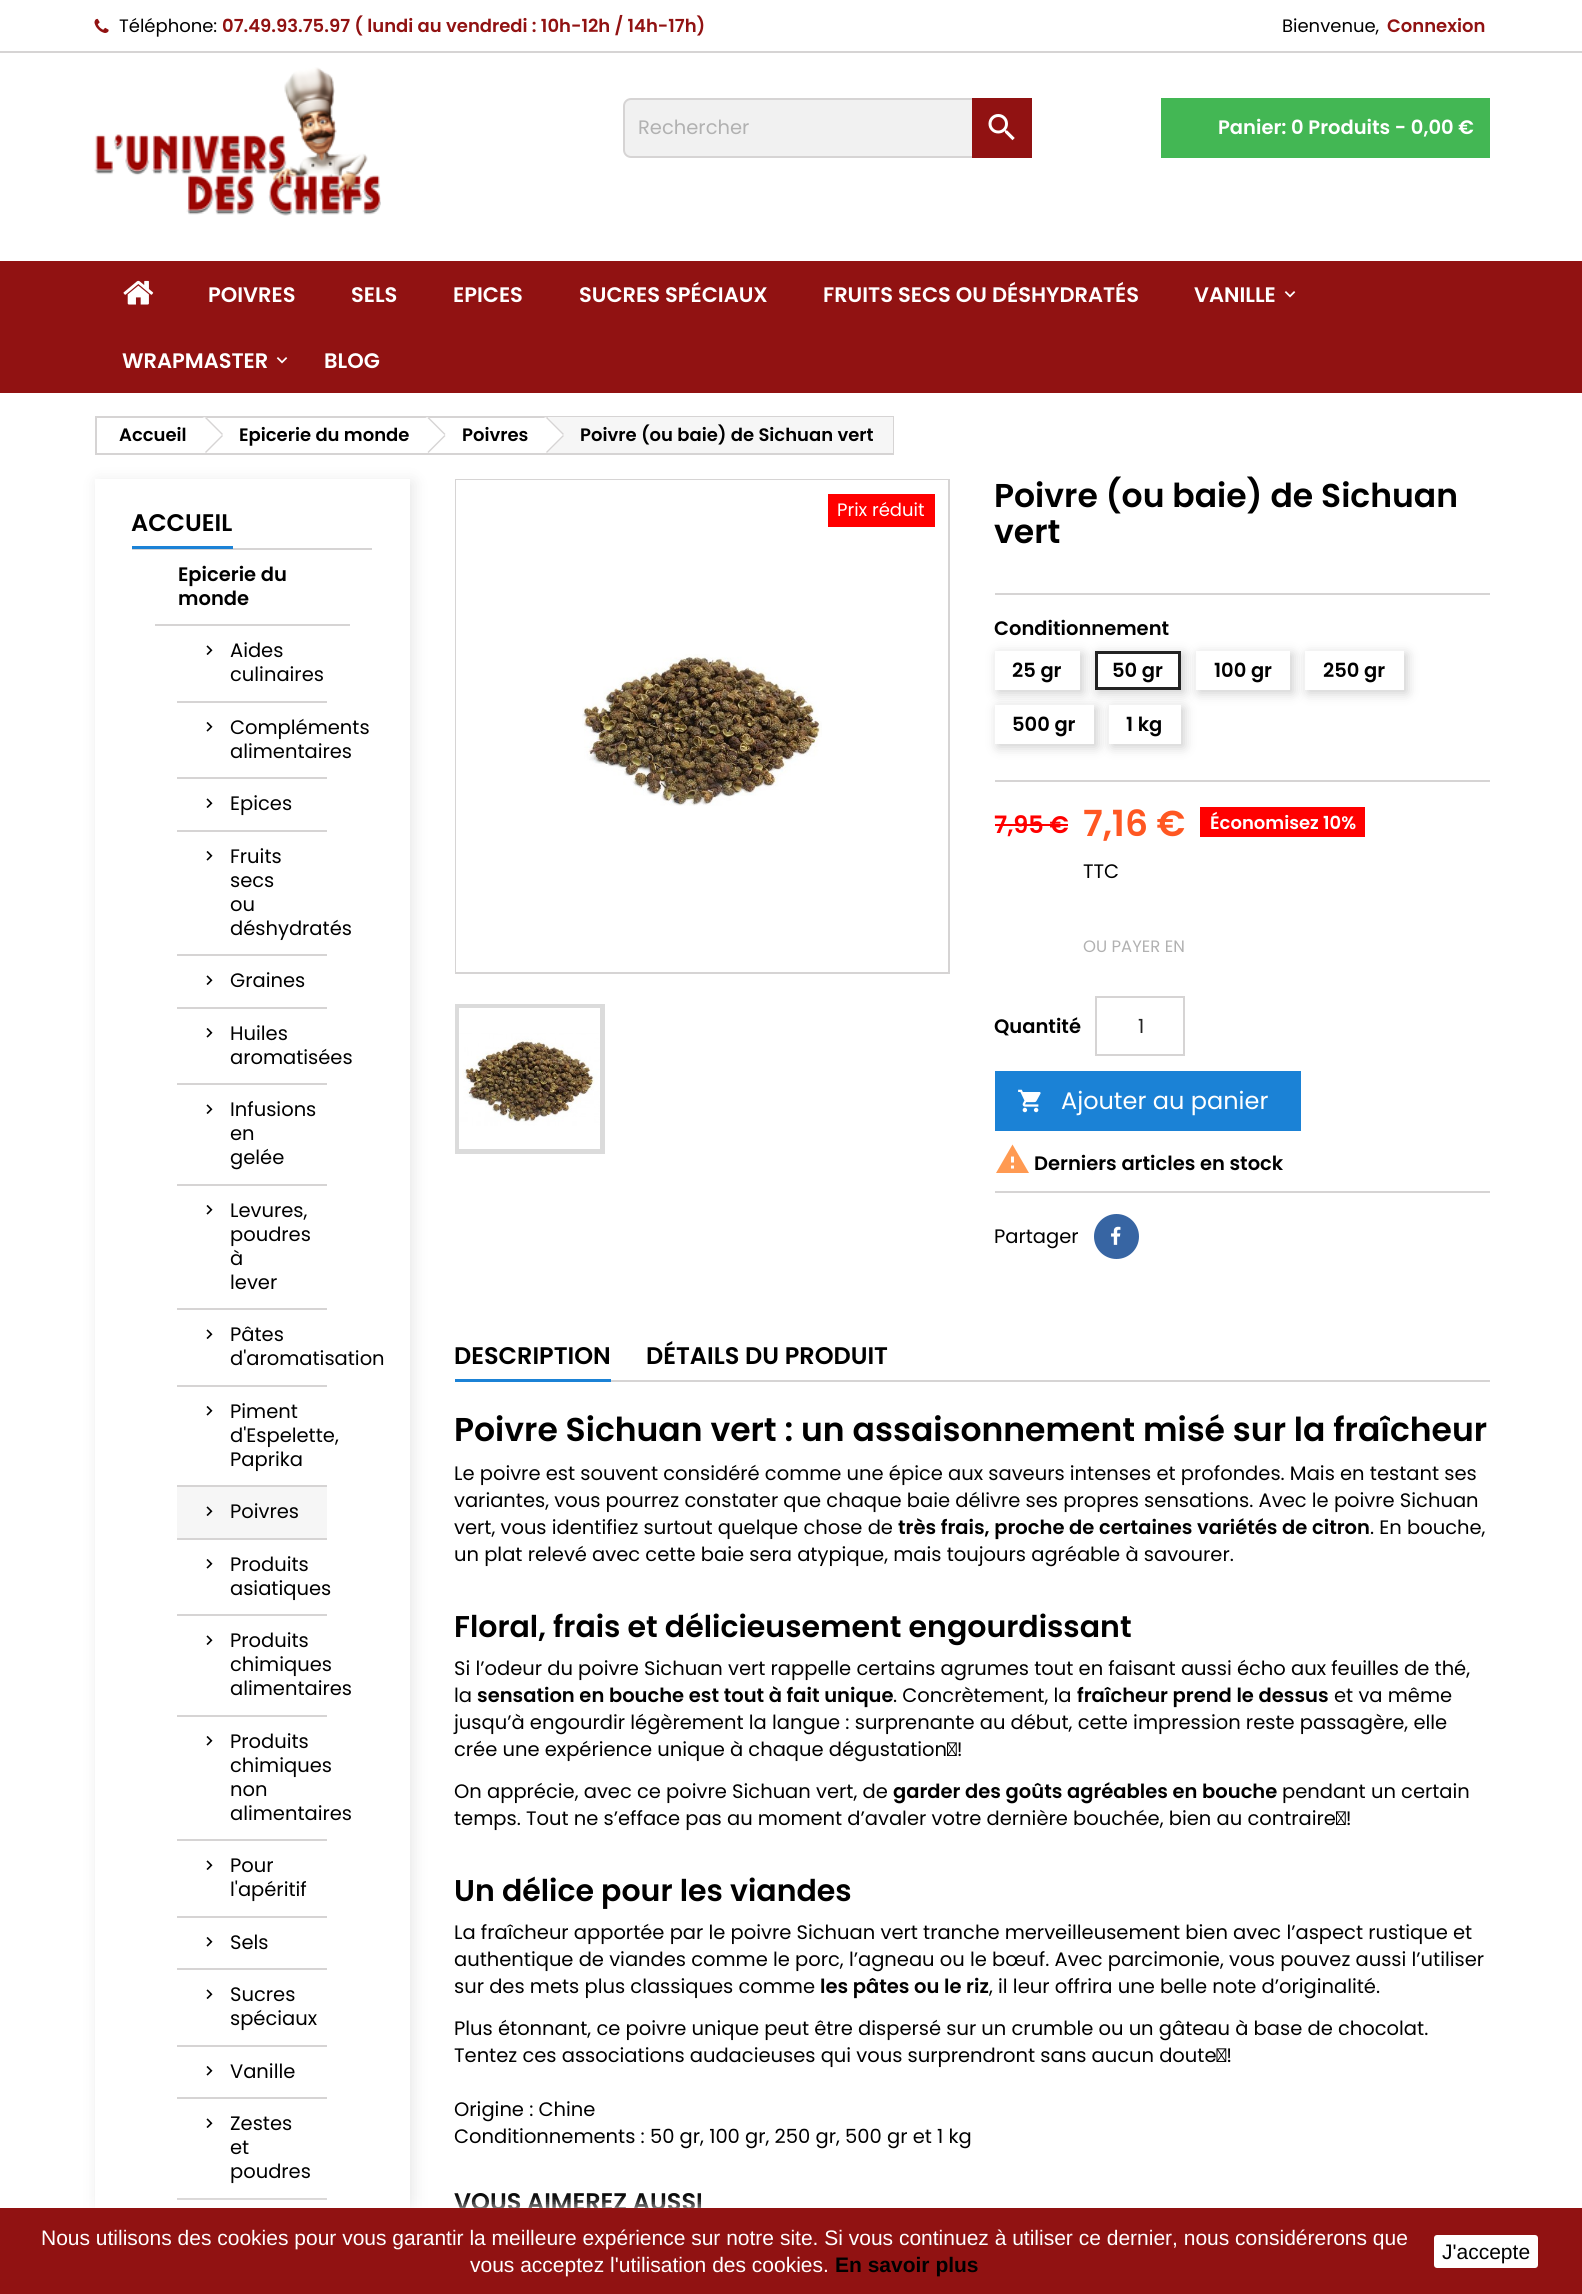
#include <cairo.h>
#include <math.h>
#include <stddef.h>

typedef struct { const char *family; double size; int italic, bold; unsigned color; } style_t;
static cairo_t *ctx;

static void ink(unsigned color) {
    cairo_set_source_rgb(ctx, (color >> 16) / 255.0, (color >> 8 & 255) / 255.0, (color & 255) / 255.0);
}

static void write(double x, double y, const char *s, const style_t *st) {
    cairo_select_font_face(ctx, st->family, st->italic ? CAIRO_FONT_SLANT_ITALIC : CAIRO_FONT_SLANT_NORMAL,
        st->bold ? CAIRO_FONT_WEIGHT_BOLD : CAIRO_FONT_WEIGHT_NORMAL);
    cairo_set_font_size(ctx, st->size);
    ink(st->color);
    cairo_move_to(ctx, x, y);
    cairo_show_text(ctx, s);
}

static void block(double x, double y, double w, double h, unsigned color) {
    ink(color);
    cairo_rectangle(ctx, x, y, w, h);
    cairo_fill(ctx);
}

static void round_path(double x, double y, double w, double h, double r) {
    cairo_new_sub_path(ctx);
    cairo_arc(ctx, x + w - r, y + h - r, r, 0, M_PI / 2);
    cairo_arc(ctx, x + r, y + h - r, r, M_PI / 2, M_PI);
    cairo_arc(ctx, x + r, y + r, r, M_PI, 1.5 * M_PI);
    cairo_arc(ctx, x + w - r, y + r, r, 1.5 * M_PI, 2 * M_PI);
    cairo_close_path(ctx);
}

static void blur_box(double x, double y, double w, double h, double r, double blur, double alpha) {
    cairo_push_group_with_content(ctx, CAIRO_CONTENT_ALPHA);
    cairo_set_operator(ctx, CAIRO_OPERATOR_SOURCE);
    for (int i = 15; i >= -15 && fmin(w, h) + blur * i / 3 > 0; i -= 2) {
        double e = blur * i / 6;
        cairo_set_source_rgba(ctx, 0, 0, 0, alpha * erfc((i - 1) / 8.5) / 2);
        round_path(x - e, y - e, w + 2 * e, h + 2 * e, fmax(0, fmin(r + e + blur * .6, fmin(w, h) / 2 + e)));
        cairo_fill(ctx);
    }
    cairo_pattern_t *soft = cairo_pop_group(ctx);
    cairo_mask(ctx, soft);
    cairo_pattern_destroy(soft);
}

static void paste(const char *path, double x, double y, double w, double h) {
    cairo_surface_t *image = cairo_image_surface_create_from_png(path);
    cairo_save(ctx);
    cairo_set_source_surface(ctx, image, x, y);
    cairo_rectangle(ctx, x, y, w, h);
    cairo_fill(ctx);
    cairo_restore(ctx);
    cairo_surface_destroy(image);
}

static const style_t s1 = {"Poppins", 18, 0, 0, 0x000000};
static const style_t s2 = {"Poppins SemiBold", 18, 0, 0, 0x911212};
static const style_t s3 = {"Poppins", 19.5, 0, 0, 0xb1b1b1};
static const style_t s4 = {"Poppins SemiBold", 19.5, 0, 0, 0xffffff};
static const style_t s5 = {"Poppins SemiBold", 21, 0, 0, 0xffffff};
static const style_t s6 = {"Poppins SemiBold", 18, 0, 0, 0x000000};
static const style_t s7 = {"Poppins SemiBold", 24, 0, 0, 0x000000};
static const style_t s8 = {"Poppins SemiBold", 19.5, 0, 0, 0x000000};
static const style_t s9 = {"Poppins", 19.5, 0, 0, 0x000000};
static const style_t s10 = {"Poppins", 18, 0, 0, 0xffffff};
static const style_t s11 = {"Poppins SemiBold", 33, 0, 0, 0x000000};
static const style_t s12 = {"Poppins SemiBold", 24, 0, 0, 0xff0000};
static const style_t s13 = {"Poppins SemiBold", 36, 0, 0, 0xff5722};
static const style_t s14 = {"Poppins SemiBold", 18, 0, 0, 0xffffff};
static const style_t s15 = {"Poppins", 16.5, 0, 0, 0xb1b1b1};
static const style_t s16 = {"Poppins", 19.5, 0, 0, 0x232323};
static const style_t s17 = {"Poppins", 24, 0, 0, 0xffffff};
static const style_t s18 = {"Poppins SemiBold", 30, 0, 0, 0x000000};
static const style_t s19 = {"Liberation Sans", 21, 0, 0, 0xffffff};
static const style_t s20 = {"Liberation Sans", 21, 0, 1, 0x000000};
static const style_t s21 = {"Liberation Sans", 21, 0, 0, 0x000000};

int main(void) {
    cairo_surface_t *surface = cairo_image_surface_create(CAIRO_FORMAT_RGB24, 1582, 2294);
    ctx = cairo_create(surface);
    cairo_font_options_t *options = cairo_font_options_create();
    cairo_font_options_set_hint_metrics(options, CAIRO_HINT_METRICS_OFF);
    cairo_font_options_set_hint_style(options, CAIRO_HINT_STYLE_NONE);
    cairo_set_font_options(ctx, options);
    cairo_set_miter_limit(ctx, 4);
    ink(0xffffff);
    cairo_paint(ctx);
    block(0, 51, 1582, 2, 0xd6d4d4);
    paste("pic1.png", 94, 18, 15, 15);
    write(119, 32, "Téléphone:", &s1);
    write(222, 32, "07.49.93.75.97 ( lundi au vendredi : 10h-12h / 14h-17h)", &s2);
    write(1282, 32, "Bienvenue,", &s1);
    write(1387, 32, "Connexion", &s2);
    paste("pic2.png", 94, 67, 287, 149);
    ink(0xf1f1f1);
    round_path(624, 99, 407, 58, 7);
    cairo_fill_preserve(ctx);
    ink(0xd6d4d4);
    cairo_stroke(ctx);
    write(638, 134, "Rechercher", &s3);
    block(972, 98, 60, 60, 0x911212);
    paste("pic3.png", 988, 114, 27, 27);
    block(1161, 98, 329, 60, 0x43b754);
    write(1218, 134, "Panier: 0 Produits - 0,00 €", &s4);
    block(0, 261, 1582, 132, 0x911212);
    paste("pic4.png", 123, 280, 31, 25);
    write(208, 302, "POIVRES", &s5);
    write(351, 302, "SELS", &s5);
    write(453, 302, "EPICES", &s5);
    write(579, 302, "SUCRES SPÉCIAUX", &s5);
    write(823, 302, "FRUITS SECS OU DÉSHYDRATÉS", &s5);
    write(1194, 302, "VANILLE", &s5);
    paste("pic5.png", 1284, 291, 12, 7);
    write(122, 368, "WRAPMASTER", &s5);
    paste("pic5.png", 276, 357, 12, 7);
    write(324, 368, "BLOG", &s5);
    cairo_rectangle(ctx, 96, 417, 797, 37);
    ink(0xd6d4d4);
    cairo_stroke(ctx);
    write(119, 441, "Accueil", &s6);
    ink(0xffffff);
    cairo_new_path(ctx);
    cairo_move_to(ctx, 207, 418);
    cairo_line_to(ctx, 222, 433);
    cairo_curve_to(ctx, 223, 434, 223, 436, 222, 437);
    cairo_line_to(ctx, 207, 452);
    cairo_curve_to(ctx, 206, 453, 204, 453, 202.5, 452);
    cairo_line_to(ctx, 188, 437);
    cairo_curve_to(ctx, 186.5, 436, 186.5, 434, 188, 433);
    cairo_line_to(ctx, 202.5, 418);
    cairo_curve_to(ctx, 204, 417, 206, 417, 207, 418);
    cairo_close_path(ctx);
    cairo_fill(ctx);
    ink(0xd6d4d4);
    cairo_new_path(ctx);
    cairo_move_to(ctx, 206, 417);
    cairo_line_to(ctx, 223, 434);
    cairo_line_to(ctx, 222, 435);
    cairo_line_to(ctx, 205, 418);
    cairo_close_path(ctx);
    cairo_move_to(ctx, 222, 435);
    cairo_line_to(ctx, 223, 436);
    cairo_line_to(ctx, 206, 453);
    cairo_line_to(ctx, 205, 452);
    cairo_close_path(ctx);
    cairo_fill(ctx);
    write(239, 441, "Epicerie du monde", &s6);
    ink(0xffffff);
    cairo_new_path(ctx);
    cairo_move_to(ctx, 429.5, 418);
    cairo_line_to(ctx, 444.5, 433);
    cairo_curve_to(ctx, 445.5, 434, 445.5, 436, 444.5, 437);
    cairo_line_to(ctx, 429.5, 452);
    cairo_curve_to(ctx, 428.5, 453, 426.5, 453, 425.5, 452);
    cairo_line_to(ctx, 410.5, 437);
    cairo_curve_to(ctx, 409.5, 436, 409.5, 434, 410.5, 433);
    cairo_line_to(ctx, 425.5, 418);
    cairo_curve_to(ctx, 426.5, 417, 428.5, 417, 429.5, 418);
    cairo_close_path(ctx);
    cairo_fill(ctx);
    ink(0xd6d4d4);
    cairo_new_path(ctx);
    cairo_move_to(ctx, 428.5, 417);
    cairo_line_to(ctx, 445.5, 434);
    cairo_line_to(ctx, 444.5, 435);
    cairo_line_to(ctx, 427.5, 418);
    cairo_close_path(ctx);
    cairo_move_to(ctx, 444.5, 435);
    cairo_line_to(ctx, 445.5, 436);
    cairo_line_to(ctx, 428.5, 453);
    cairo_line_to(ctx, 427.5, 452);
    cairo_close_path(ctx);
    cairo_fill(ctx);
    write(462, 441, "Poivres", &s6);
    block(548, 417, 345, 36, 0xf6f6f6);
    ink(0xffffff);
    cairo_new_path(ctx);
    cairo_move_to(ctx, 548.5, 418);
    cairo_line_to(ctx, 563, 433);
    cairo_curve_to(ctx, 564.5, 434, 564.5, 436, 563, 437);
    cairo_line_to(ctx, 548.5, 452);
    cairo_curve_to(ctx, 547, 453, 545, 453, 544, 452);
    cairo_line_to(ctx, 529, 437);
    cairo_curve_to(ctx, 528, 436, 528, 434, 529, 433);
    cairo_line_to(ctx, 544, 418);
    cairo_curve_to(ctx, 545, 417, 547, 417, 548.5, 418);
    cairo_close_path(ctx);
    cairo_fill(ctx);
    ink(0xd6d4d4);
    cairo_new_path(ctx);
    cairo_move_to(ctx, 547, 417);
    cairo_line_to(ctx, 564, 434);
    cairo_line_to(ctx, 563, 435);
    cairo_line_to(ctx, 546, 418);
    cairo_close_path(ctx);
    cairo_move_to(ctx, 563, 435);
    cairo_line_to(ctx, 564, 436);
    cairo_line_to(ctx, 547, 453);
    cairo_line_to(ctx, 546, 452);
    cairo_close_path(ctx);
    cairo_fill(ctx);
    write(580, 441, "Poivre (ou baie) de Sichuan vert", &s6);
    ink(0x000000);
    blur_box(98, 482, 315, 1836, 0, 8, 0.1);
    block(95, 479, 315, 1729, 0xffffff);
    block(132, 548, 240, 2, 0xd6d4d4);
    block(132, 546, 101, 3, 0x1b82d6);
    write(131, 531, "ACCUEIL", &s7);
    block(155, 624, 195, 2, 0xd6d4d4);
    write(178, 581, "Epicerie du", &s8);
    write(178, 605, "monde", &s8);
    block(177, 701, 150, 2, 0xd6d4d4);
    paste("pic6.png", 206, 645, 7, 10);
    write(230, 657, "Aides", &s9);
    write(230, 681, "culinaires", &s9);
    block(177, 777, 150, 2, 0xd6d4d4);
    paste("pic7.png", 206, 722, 7, 10);
    write(230, 734, "Compléments", &s9);
    write(230, 758, "alimentaires", &s9);
    block(177, 830, 150, 2, 0xd6d4d4);
    paste("pic6.png", 206, 798, 7, 10);
    write(230, 810, "Epices", &s9);
    block(177, 954, 150, 2, 0xd6d4d4);
    paste("pic7.png", 206, 851, 7, 10);
    write(230, 863, "Fruits", &s9);
    write(230, 887, "secs", &s9);
    write(230, 911, "ou", &s9);
    write(230, 935, "déshydratés", &s9);
    block(177, 1007, 150, 2, 0xd6d4d4);
    paste("pic6.png", 206, 975, 7, 10);
    write(230, 987, "Graines", &s9);
    block(177, 1083, 150, 2, 0xd6d4d4);
    paste("pic7.png", 206, 1028, 7, 10);
    write(230, 1040, "Huiles", &s9);
    write(230, 1064, "aromatisées", &s9);
    block(177, 1184, 150, 2, 0xd6d4d4);
    paste("pic6.png", 206, 1104, 7, 10);
    write(230, 1116, "Infusions", &s9);
    write(230, 1140, "en", &s9);
    write(230, 1164, "gelée", &s9);
    block(177, 1308, 150, 2, 0xd6d4d4);
    paste("pic7.png", 206, 1205, 7, 10);
    write(230, 1217, "Levures,", &s9);
    write(230, 1241, "poudres", &s9);
    write(230, 1265, "à", &s9);
    write(230, 1289, "lever", &s9);
    block(177, 1385, 150, 2, 0xd6d4d4);
    paste("pic6.png", 206, 1329, 7, 10);
    write(230, 1341, "Pâtes", &s9);
    write(230, 1365, "d'aromatisation", &s9);
    block(177, 1485, 150, 2, 0xd6d4d4);
    paste("pic7.png", 206, 1406, 7, 10);
    write(230, 1418, "Piment", &s9);
    write(230, 1442, "d'Espelette,", &s9);
    write(230, 1466, "Paprika", &s9);
    block(177, 1487, 150, 51, 0xf6f6f6);
    block(177, 1538, 150, 2, 0xd6d4d4);
    paste("pic8.png", 206, 1506, 7, 10);
    write(230, 1518, "Poivres", &s9);
    block(177, 1614, 150, 2, 0xd6d4d4);
    paste("pic7.png", 206, 1559, 7, 10);
    write(230, 1571, "Produits", &s9);
    write(230, 1595, "asiatiques", &s9);
    block(177, 1715, 150, 2, 0xd6d4d4);
    paste("pic6.png", 206, 1635, 7, 10);
    write(230, 1647, "Produits", &s9);
    write(230, 1671, "chimiques", &s9);
    write(230, 1695, "alimentaires", &s9);
    block(177, 1839, 150, 2, 0xd6d4d4);
    paste("pic7.png", 206, 1736, 7, 10);
    write(230, 1748, "Produits", &s9);
    write(230, 1772, "chimiques", &s9);
    write(230, 1796, "non", &s9);
    write(230, 1820, "alimentaires", &s9);
    block(177, 1916, 150, 2, 0xd6d4d4);
    paste("pic6.png", 206, 1860, 7, 10);
    write(230, 1872, "Pour", &s9);
    write(230, 1896, "l'apéritif", &s9);
    block(177, 1968, 150, 2, 0xd6d4d4);
    paste("pic7.png", 206, 1937, 7, 10);
    write(230, 1949, "Sels", &s9);
    block(177, 2045, 150, 2, 0xd6d4d4);
    paste("pic6.png", 206, 1989, 7, 10);
    write(230, 2001, "Sucres", &s9);
    write(230, 2025, "spéciaux", &s9);
    block(177, 2097, 150, 2, 0xd6d4d4);
    paste("pic7.png", 206, 2066, 7, 10);
    write(230, 2078, "Vanille", &s9);
    block(177, 2198, 150, 2, 0xd6d4d4);
    paste("pic6.png", 206, 2118, 7, 10);
    write(230, 2130, "Zestes", &s9);
    write(230, 2154, "et", &s9);
    write(230, 2178, "poudres", &s9);
    cairo_rectangle(ctx, 456, 480, 493, 493);
    ink(0xd6d4d4);
    cairo_stroke(ctx);
    block(456, 480, 492, 492, 0xffffff);
    paste("pic9.png", 582, 654, 240, 152);
    cairo_rectangle(ctx, 457.5, 1006.5, 145, 145);
    ink(0xdbdbdb);
    cairo_set_line_width(ctx, 5);
    cairo_stroke(ctx);
    paste("pic10.png", 459, 1008, 141, 141);
    block(828, 494, 107, 33, 0xff0000);
    write(837, 516, "Prix réduit", &s10);
    write(994, 507, "Poivre (ou baie) de Sichuan", &s11);
    write(994, 543, "vert", &s11);
    block(995, 593, 495, 2, 0xd6d4d4);
    write(994, 635, "Conditionnement", &s8);
    cairo_save(ctx);
    cairo_set_fill_rule(ctx, CAIRO_FILL_RULE_EVEN_ODD);
    cairo_new_path(ctx);
    cairo_move_to(ctx, 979, 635);
    cairo_line_to(ctx, 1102, 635);
    cairo_line_to(ctx, 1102, 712);
    cairo_line_to(ctx, 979, 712);
    cairo_close_path(ctx);
    cairo_move_to(ctx, 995, 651);
    cairo_line_to(ctx, 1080, 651);
    cairo_line_to(ctx, 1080, 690);
    cairo_line_to(ctx, 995, 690);
    cairo_close_path(ctx);
    cairo_clip(ctx);
    ink(0x000000);
    blur_box(998, 654, 85, 39, 0, 6, 0.2);
    cairo_restore(ctx);
    write(1012, 677, "25 gr", &s8);
    ink(0x000000);
    blur_box(1098, 654, 86, 39, 0, 6, 0.2);
    ink(0xffffff);
    cairo_rectangle(ctx, 1096.5, 652.5, 83, 36);
    cairo_fill_preserve(ctx);
    ink(0x232323);
    cairo_set_line_width(ctx, 3);
    cairo_stroke(ctx);
    write(1112, 677, "50 gr", &s8);
    cairo_save(ctx);
    cairo_set_fill_rule(ctx, CAIRO_FILL_RULE_EVEN_ODD);
    cairo_new_path(ctx);
    cairo_move_to(ctx, 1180, 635);
    cairo_line_to(ctx, 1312, 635);
    cairo_line_to(ctx, 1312, 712);
    cairo_line_to(ctx, 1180, 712);
    cairo_close_path(ctx);
    cairo_move_to(ctx, 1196, 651);
    cairo_line_to(ctx, 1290, 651);
    cairo_line_to(ctx, 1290, 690);
    cairo_line_to(ctx, 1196, 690);
    cairo_close_path(ctx);
    cairo_clip(ctx);
    ink(0x000000);
    blur_box(1199, 654, 94, 39, 0, 6, 0.2);
    cairo_restore(ctx);
    write(1214, 677, "100 gr", &s8);
    cairo_save(ctx);
    cairo_set_fill_rule(ctx, CAIRO_FILL_RULE_EVEN_ODD);
    cairo_new_path(ctx);
    cairo_move_to(ctx, 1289, 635);
    cairo_line_to(ctx, 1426, 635);
    cairo_line_to(ctx, 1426, 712);
    cairo_line_to(ctx, 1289, 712);
    cairo_close_path(ctx);
    cairo_move_to(ctx, 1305, 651);
    cairo_line_to(ctx, 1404, 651);
    cairo_line_to(ctx, 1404, 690);
    cairo_line_to(ctx, 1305, 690);
    cairo_close_path(ctx);
    cairo_clip(ctx);
    ink(0x000000);
    blur_box(1308, 654, 99, 39, 0, 6, 0.2);
    cairo_restore(ctx);
    write(1323, 677, "250 gr", &s8);
    ink(0x000000);
    blur_box(998, 708, 99, 39, 0, 6, 0.2);
    block(995, 705, 99, 39, 0xffffff);
    write(1012, 731, "500 gr", &s8);
    ink(0x000000);
    blur_box(1112, 708, 72, 39, 0, 6, 0.2);
    block(1109, 705, 72, 39, 0xffffff);
    write(1126, 731, "1 kg", &s8);
    block(995, 780, 495, 2, 0xd6d4d4);
    write(994, 833, "7,95 €", &s12);
    block(995, 824, 73, 2, 0xff0000);
    write(1083, 836, "7,16 €", &s13);
    block(1200, 807, 165, 30, 0xff0000);
    write(1210, 829, "Économisez 10%", &s14);
    write(1083, 878, "TTC", &s9);
    write(1083, 952, "OU PAYER EN", &s15);
    write(994, 1033, "Quantité", &s8);
    cairo_rectangle(ctx, 1096, 997, 88, 58);
    ink(0xd6d4d4);
    cairo_set_line_width(ctx, 2);
    cairo_stroke(ctx);
    write(1138, 1033, "1", &s16);
    block(995, 1071, 306, 60, 0x1b82d6);
    paste("pic11.png", 1018, 1089, 23, 24);
    write(1061, 1109, "Ajouter au panier", &s17);
    ink(0xff9a52);
    cairo_new_path(ctx);
    cairo_move_to(ctx, 1014, 1162.5);
    cairo_line_to(ctx, 1014, 1156.5);
    cairo_line_to(ctx, 1011, 1156.5);
    cairo_line_to(ctx, 1011, 1162.5);
    cairo_close_path(ctx);
    cairo_move_to(ctx, 1014, 1168.5);
    cairo_line_to(ctx, 1014, 1165.5);
    cairo_line_to(ctx, 1011, 1165.5);
    cairo_line_to(ctx, 1011, 1168.5);
    cairo_close_path(ctx);
    cairo_move_to(ctx, 996, 1173);
    cairo_line_to(ctx, 1012.5, 1144.5);
    cairo_line_to(ctx, 1029, 1173);
    cairo_close_path(ctx);
    cairo_fill(ctx);
    write(1034, 1170, "Derniers articles en stock", &s8);
    block(995, 1191, 495, 2, 0xd6d4d4);
    write(994, 1243, "Partager", &s9);
    ink(0x3765a3);
    cairo_new_path(ctx);
    cairo_arc(ctx, 1116.5, 1236.5, 22.5, 0, 2 * M_PI);
    cairo_fill(ctx);
    paste("pic12.png", 1111, 1226, 10, 19);
    block(611, 1380, 879, 2, 0xd6d4d4);
    block(455, 1379, 156, 3, 0x1b82d6);
    write(454, 1364, "DESCRIPTION", &s7);
    write(646, 1364, "DÉTAILS DU PRODUIT", &s7);
    write(454, 1441, "Poivre Sichuan vert : un assaisonnement misé sur la fraîcheur", &s11);
    write(454, 1480, "Le poivre est souvent considéré comme une épice aux saveurs intenses et profondes. Mais en testant ses", &s9);
    write(454, 1507, "variantes, vous pourrez constater que chaque baie délivre ses propres sensations. Avec le poivre Sichuan", &s9);
    write(454, 1534, "vert, vous identifiez surtout quelque chose de", &s9);
    write(898, 1534, "très frais, proche de certaines variétés de citron", &s8);
    write(1370, 1534, ". En bouche,", &s9);
    write(454, 1561, "un plat relevé avec cette baie sera atypique, mais toujours agréable à savourer.", &s9);
    write(454, 1637, "Floral, frais et délicieusement engourdissant", &s18);
    write(454, 1675, "Si l’odeur du poivre Sichuan vert rappelle certains agrumes tout en faisant aussi écho aux feuilles de thé,", &s9);
    write(454, 1702, "la", &s9);
    write(477, 1702, "sensation en bouche est tout à fait unique", &s8);
    write(893, 1702, ". Concrètement, la", &s9);
    write(1077, 1702, "fraîcheur prend le dessus", &s8);
    write(1334, 1702, "et va même", &s9);
    write(454, 1729, "jusqu’à engourdir légèrement la langue : surprenante au début, cette impression reste passagère, elle", &s9);
    write(454, 1756, "crée une expérience unique à chaque dégustation !", &s9);
    write(454, 1798, "On apprécie, avec ce poivre Sichuan vert, de", &s9);
    write(893, 1798, "garder des goûts agréables en bouche", &s8);
    write(1282, 1798, "pendant un certain", &s9);
    write(454, 1825, "temps. Tout ne s’efface pas au moment d’avaler votre dernière bouchée, bien au contraire !", &s9);
    write(454, 1901, "Un délice pour les viandes", &s18);
    write(454, 1939, "La fraîcheur apportée par le poivre Sichuan vert tranche merveilleusement bien avec l’aspect rustique et", &s9);
    write(454, 1966, "authentique de viandes comme le porc, l’agneau ou le bœuf. Avec parcimonie, vous pouvez aussi l’utiliser", &s9);
    write(454, 1993, "sur des mets plus classiques comme", &s9);
    write(820, 1993, "les pâtes ou le riz", &s8);
    write(989, 1993, ", il leur offrira une belle note d’originalité.", &s9);
    write(454, 2035, "Plus étonnant, ce poivre unique peut être dispersé sur un crumble ou un gâteau à base de chocolat.", &s9);
    write(454, 2062, "Tentez ces associations audacieuses qui vous surprendront sans aucun doute !", &s9);
    write(454, 2116, "Origine : Chine", &s9);
    write(454, 2143, "Conditionnements : 50 gr, 100 gr, 250 gr, 500 gr et 1 kg", &s9);
    write(454, 2210, "VOUS AIMEREZ AUSSI", &s7);
    ink(0xffffff);
    blur_box(0, 2208, 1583, 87, 0, 7.5, 1);
    block(0, 2208, 1582, 86, 0x911212);
    write(41, 2245, "Nous utilisons des cookies pour vous garantir la meilleure expérience sur notre site. Si vous continuez à utiliser ce dernier, nous considérerons que", &s19);
    write(470, 2272, "vous acceptez l'utilisation des cookies.", &s19);
    write(835, 2272, "En savoir plus", &s20);
    ink(0xffffff);
    round_path(1434, 2235, 104, 33, 3);
    cairo_fill(ctx);
    write(1442, 2259, "J'accepte", &s21);
    cairo_surface_write_to_png(surface, "screenshot.png");
    cairo_font_options_destroy(options);
    cairo_destroy(ctx);
    cairo_surface_destroy(surface);
    return 0;
}
